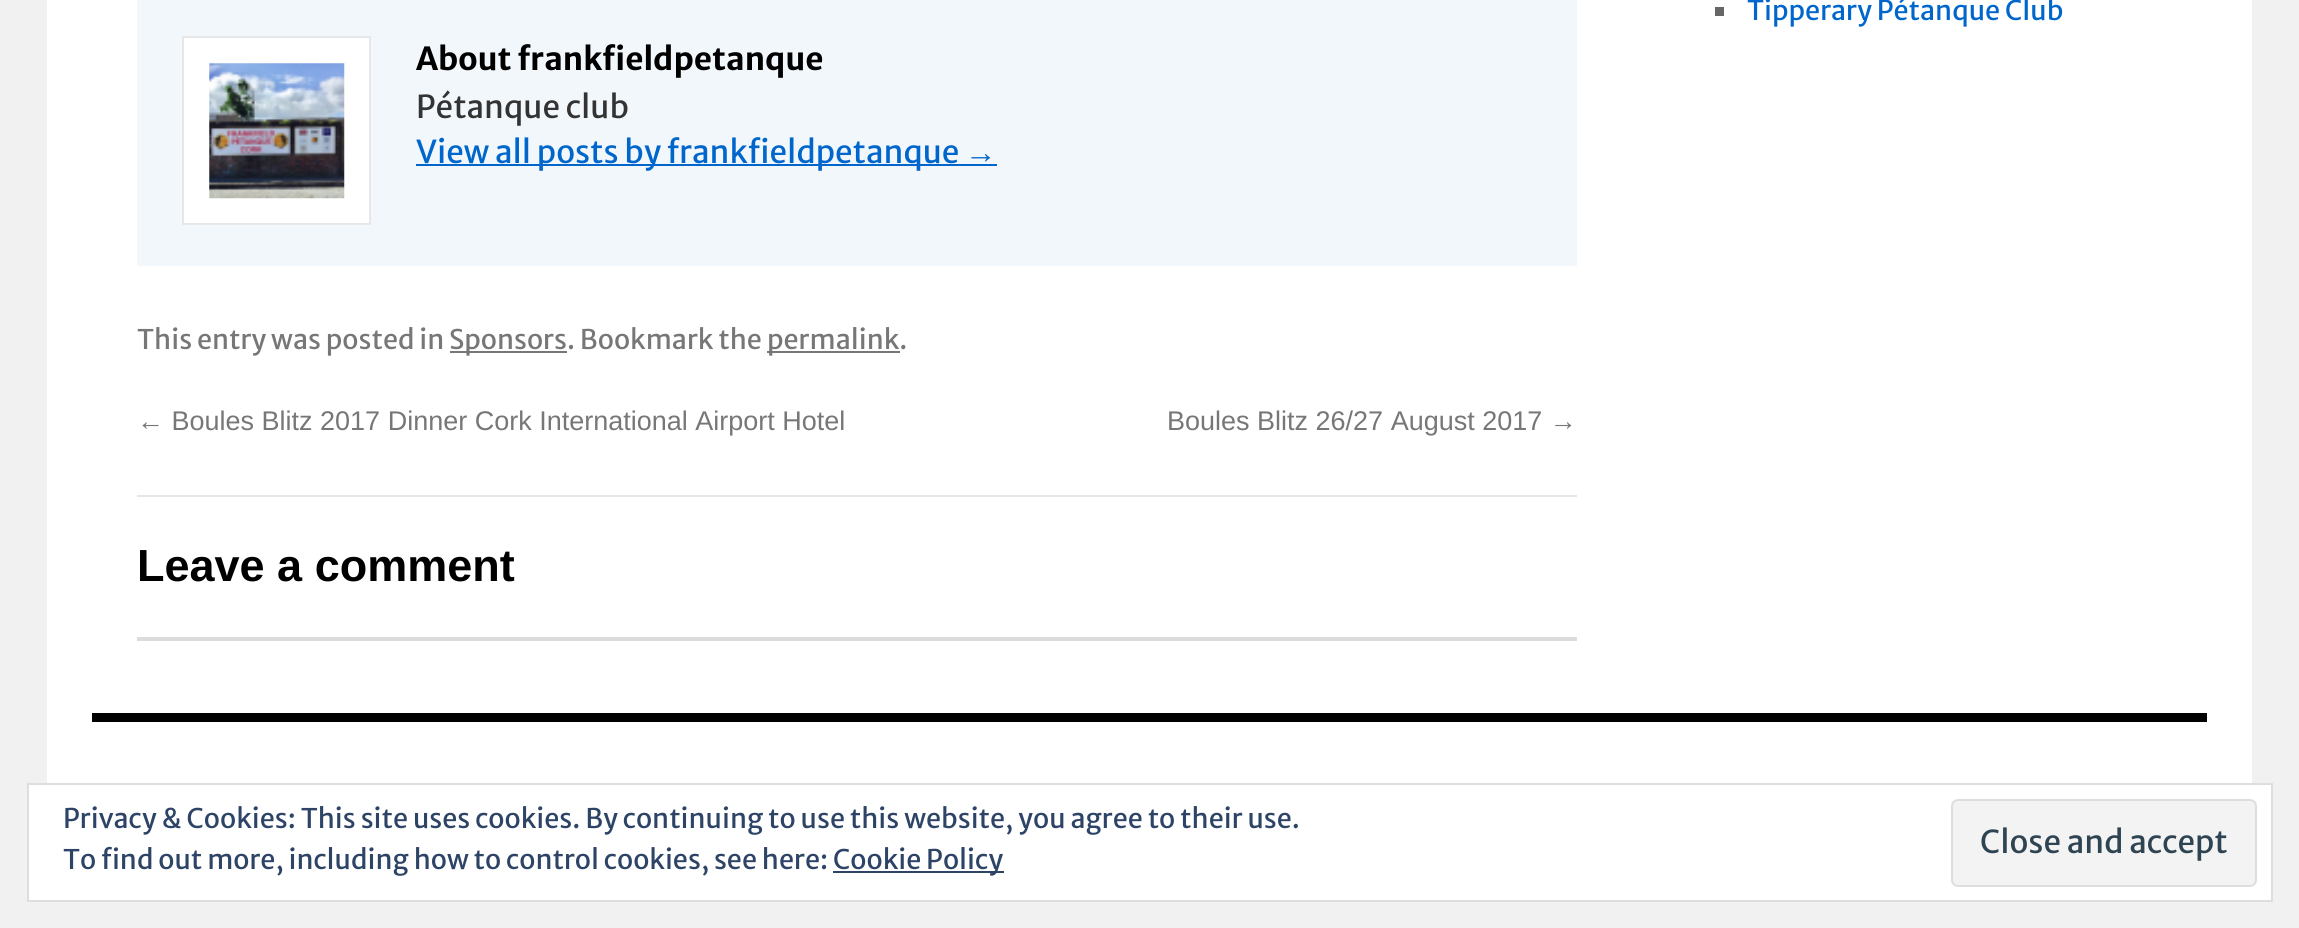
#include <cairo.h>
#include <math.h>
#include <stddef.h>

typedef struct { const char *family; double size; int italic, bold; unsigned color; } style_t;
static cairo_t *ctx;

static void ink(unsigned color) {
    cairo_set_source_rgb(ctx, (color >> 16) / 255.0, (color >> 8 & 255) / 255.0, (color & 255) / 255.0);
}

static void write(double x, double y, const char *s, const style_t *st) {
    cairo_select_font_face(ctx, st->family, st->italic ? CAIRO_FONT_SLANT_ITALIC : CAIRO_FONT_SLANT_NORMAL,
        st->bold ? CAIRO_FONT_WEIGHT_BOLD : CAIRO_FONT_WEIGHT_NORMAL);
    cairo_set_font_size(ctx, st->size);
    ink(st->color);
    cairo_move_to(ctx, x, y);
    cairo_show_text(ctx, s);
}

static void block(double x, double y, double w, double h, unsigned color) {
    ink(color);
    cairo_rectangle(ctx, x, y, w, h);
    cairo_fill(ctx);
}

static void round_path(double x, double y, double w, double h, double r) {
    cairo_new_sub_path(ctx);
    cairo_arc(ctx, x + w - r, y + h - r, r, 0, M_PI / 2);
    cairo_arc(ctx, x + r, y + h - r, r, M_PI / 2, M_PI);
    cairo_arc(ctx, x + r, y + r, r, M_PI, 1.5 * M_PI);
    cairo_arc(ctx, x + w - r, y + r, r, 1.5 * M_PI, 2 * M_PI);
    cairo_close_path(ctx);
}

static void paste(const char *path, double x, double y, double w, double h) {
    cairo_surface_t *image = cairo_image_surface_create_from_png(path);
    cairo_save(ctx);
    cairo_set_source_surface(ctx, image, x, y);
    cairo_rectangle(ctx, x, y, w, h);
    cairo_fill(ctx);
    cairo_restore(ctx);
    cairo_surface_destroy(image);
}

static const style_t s1 = {"Merriweather Sans", 27, 0, 0, 0x0066cc};
static const style_t s2 = {"Merriweather Sans", 31.5, 0, 1, 0x000000};
static const style_t s3 = {"Merriweather Sans", 31.5, 0, 0, 0x333333};
static const style_t s4 = {"Merriweather Sans", 31.5, 0, 0, 0x0066cc};
static const style_t s5 = {"Liberation Sans", 31.5, 0, 0, 0x0066cc};
static const style_t s6 = {"Merriweather Sans", 27, 0, 0, 0x777777};
static const style_t s7 = {"Liberation Sans", 27, 0, 0, 0x777777};
static const style_t s8 = {"Liberation Sans", 45, 0, 1, 0x000000};
static const style_t s9 = {"Merriweather Sans", 27, 0, 0, 0x2e4467};
static const style_t s10 = {"Merriweather Sans", 31.5, 0, 0, 0x2e4453};

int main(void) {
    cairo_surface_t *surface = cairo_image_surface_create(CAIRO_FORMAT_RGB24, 2299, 928);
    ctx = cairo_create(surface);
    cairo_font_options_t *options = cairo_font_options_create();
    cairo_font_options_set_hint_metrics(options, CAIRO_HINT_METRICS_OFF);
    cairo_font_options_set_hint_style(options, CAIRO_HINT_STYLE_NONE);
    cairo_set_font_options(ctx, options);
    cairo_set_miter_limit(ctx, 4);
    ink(0xf1f1f1);
    cairo_paint(ctx);
    block(47, 0, 2205, 783, 0xffffff);
    block(1715, 7, 9, 9, 0x666666);
    write(1747, 20, "Tipperary Pétanque Club", &s1);
    block(137, 0, 1440, 266, 0xf2f7fc);
    ink(0xffffff);
    cairo_rectangle(ctx, 183, 37, 187, 187);
    cairo_fill_preserve(ctx);
    ink(0xe7e7e7);
    cairo_stroke(ctx);
    paste("pic1.png", 209, 63, 136, 136);
    write(416, 70, "About frankfieldpetanque", &s2);
    write(416, 118, "Pétanque club", &s3);
    block(416, 164, 581, 2, 0x0066cc);
    write(416, 163, "View all posts by frankfieldpetanque", &s4);
    write(965, 163, "→", &s5);
    write(137, 349, "This entry was posted in", &s6);
    block(450, 351, 117, 2, 0x777777);
    write(449, 349, "Sponsors. Bookmark the", &s6);
    block(767, 351, 133, 2, 0x777777);
    write(767, 349, "permalink.", &s6);
    write(137, 430, "← Boules Blitz 2017 Dinner Cork International Airport Hotel", &s7);
    write(1167, 430, "Boules Blitz 26/27 August 2017 →", &s7);
    block(137, 495, 1440, 2, 0xe7e7e7);
    write(137, 581, "Leave a comment", &s8);
    block(137, 637, 1440, 4, 0xdcdcde);
    block(92, 713, 2115, 9, 0x000000);
    ink(0xffffff);
    cairo_rectangle(ctx, 28, 784, 2244, 117);
    cairo_fill_preserve(ctx);
    ink(0xdedede);
    cairo_stroke(ctx);
    write(63, 828, "Privacy & Cookies: This site uses cookies. By continuing to use this website, you agree to their use.", &s9);
    write(63, 869, "To find out more, including how to control cookies, see here:", &s9);
    block(833, 871, 171, 2, 0x2e4467);
    write(833, 869, "Cookie Policy", &s9);
    ink(0xf3f3f3);
    round_path(1952, 800, 304, 86, 6);
    cairo_fill_preserve(ctx);
    ink(0xdedede);
    cairo_stroke(ctx);
    write(1980, 853, "Close and accept", &s10);
    cairo_surface_write_to_png(surface, "screenshot.png");
    cairo_font_options_destroy(options);
    cairo_destroy(ctx);
    cairo_surface_destroy(surface);
    return 0;
}
